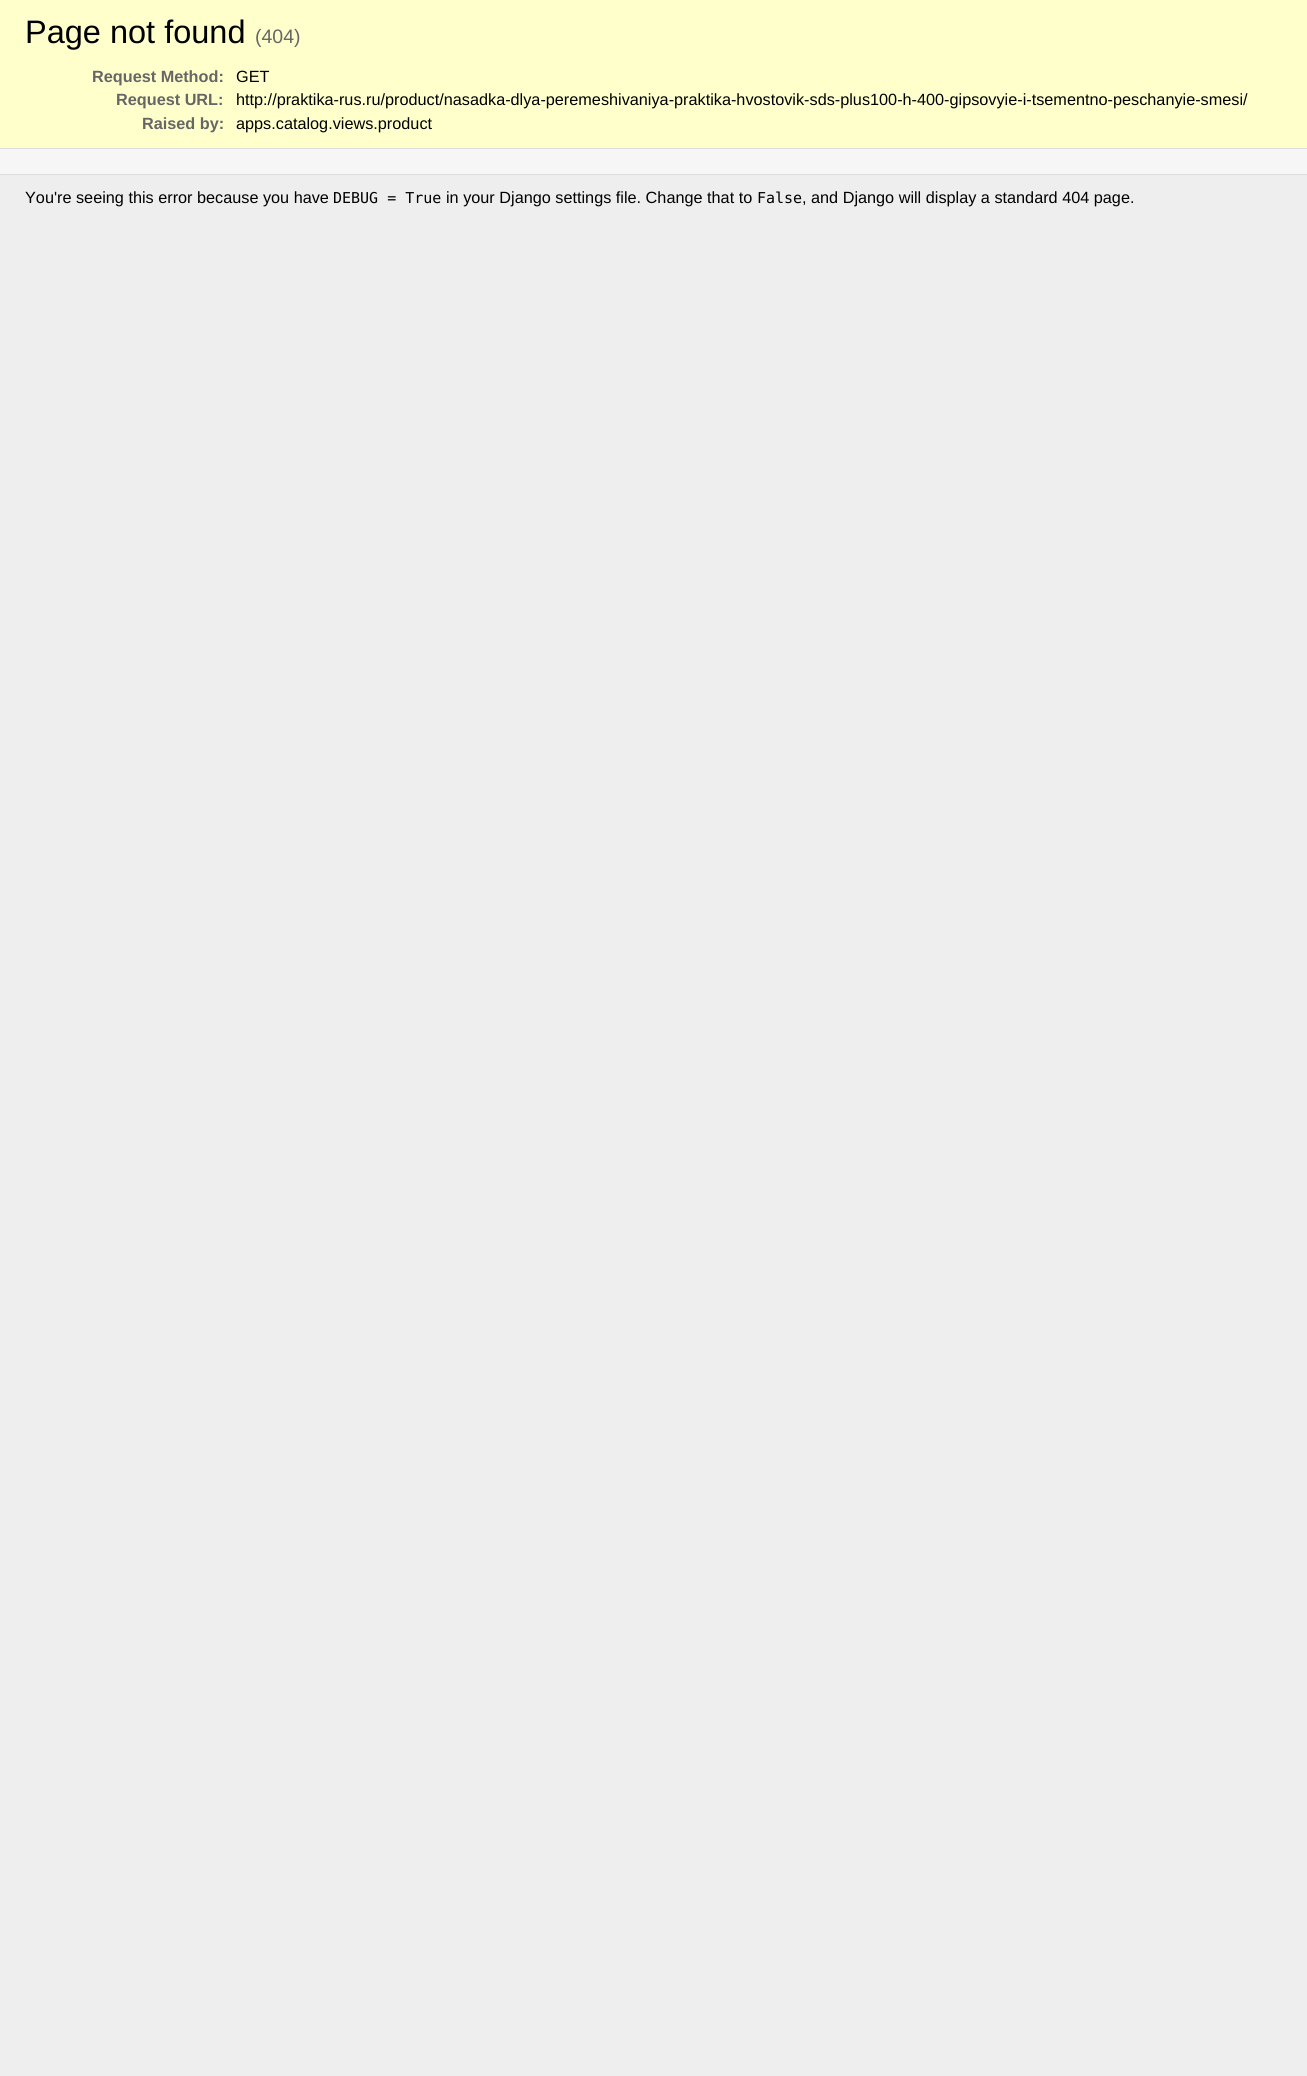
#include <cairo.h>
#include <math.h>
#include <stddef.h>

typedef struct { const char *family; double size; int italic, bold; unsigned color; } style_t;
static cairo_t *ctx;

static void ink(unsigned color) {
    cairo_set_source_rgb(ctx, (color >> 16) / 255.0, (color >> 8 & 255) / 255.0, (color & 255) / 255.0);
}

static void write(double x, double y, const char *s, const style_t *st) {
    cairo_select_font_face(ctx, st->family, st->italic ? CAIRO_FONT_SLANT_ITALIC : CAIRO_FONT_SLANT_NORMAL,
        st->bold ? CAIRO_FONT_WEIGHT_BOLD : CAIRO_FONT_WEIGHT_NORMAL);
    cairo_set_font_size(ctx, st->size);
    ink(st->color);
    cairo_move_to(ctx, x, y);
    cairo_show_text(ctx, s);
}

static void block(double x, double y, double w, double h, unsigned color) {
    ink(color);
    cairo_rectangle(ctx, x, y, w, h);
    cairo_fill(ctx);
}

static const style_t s1 = {"Liberation Sans", 32.5, 0, 0, 0x000000};
static const style_t s2 = {"Liberation Sans", 19.5, 0, 0, 0x666666};
static const style_t s3 = {"Liberation Sans", 16.25, 0, 1, 0x666666};
static const style_t s4 = {"Liberation Sans", 16.25, 0, 0, 0x000000};
static const style_t s5 = {"DejaVu Sans Mono", 15, 0, 0, 0x000000};

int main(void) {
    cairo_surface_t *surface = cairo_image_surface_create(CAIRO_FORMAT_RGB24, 1307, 2076);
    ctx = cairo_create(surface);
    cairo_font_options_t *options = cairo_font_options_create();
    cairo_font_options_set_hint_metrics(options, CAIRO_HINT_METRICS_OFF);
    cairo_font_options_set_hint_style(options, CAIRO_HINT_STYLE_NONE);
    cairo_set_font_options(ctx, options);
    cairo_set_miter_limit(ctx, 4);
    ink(0xeeeeee);
    cairo_paint(ctx);
    block(0, 0, 1307, 148, 0xffffcc);
    block(0, 148, 1307, 1, 0xdddddd);
    write(25, 43, "Page not found", &s1);
    write(255, 43, "(404)", &s2);
    write(92, 82, "Request Method:", &s3);
    write(236, 82, "GET", &s4);
    write(116, 105, "Request URL:", &s3);
    write(236, 105, "http://praktika-rus.ru/product/nasadka-dlya-peremeshivaniya-praktika-hvostovik-sds-plus100-h-400-gipsovyie-i-tsementno-peschanyie-smesi/", &s4);
    write(142, 129, "Raised by:", &s3);
    write(236, 129, "apps.catalog.views.product", &s4);
    block(0, 149, 1307, 25, 0xf6f6f6);
    block(0, 174, 1307, 1, 0xdddddd);
    write(25, 203, "You're seeing this error because you have", &s4);
    write(333, 203, "DEBUG = True", &s5);
    write(446, 203, "in your Django settings file. Change that to", &s4);
    write(757, 203, "False", &s5);
    write(802, 203, ", and Django will display a standard 404 page.", &s4);
    cairo_surface_write_to_png(surface, "screenshot.png");
    cairo_font_options_destroy(options);
    cairo_destroy(ctx);
    cairo_surface_destroy(surface);
    return 0;
}
